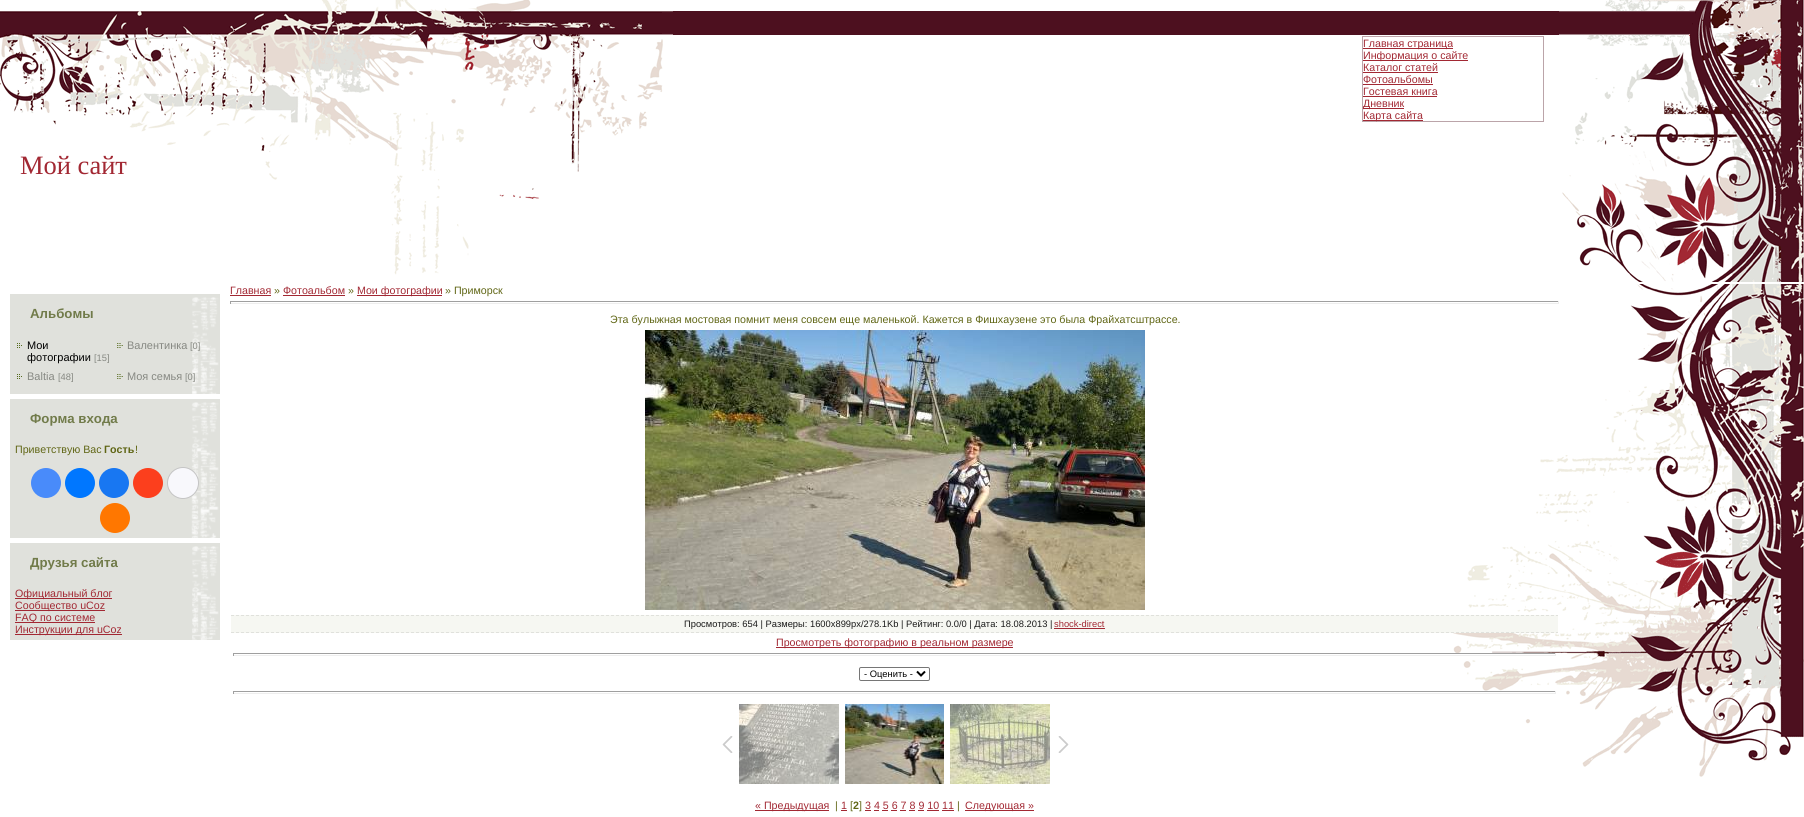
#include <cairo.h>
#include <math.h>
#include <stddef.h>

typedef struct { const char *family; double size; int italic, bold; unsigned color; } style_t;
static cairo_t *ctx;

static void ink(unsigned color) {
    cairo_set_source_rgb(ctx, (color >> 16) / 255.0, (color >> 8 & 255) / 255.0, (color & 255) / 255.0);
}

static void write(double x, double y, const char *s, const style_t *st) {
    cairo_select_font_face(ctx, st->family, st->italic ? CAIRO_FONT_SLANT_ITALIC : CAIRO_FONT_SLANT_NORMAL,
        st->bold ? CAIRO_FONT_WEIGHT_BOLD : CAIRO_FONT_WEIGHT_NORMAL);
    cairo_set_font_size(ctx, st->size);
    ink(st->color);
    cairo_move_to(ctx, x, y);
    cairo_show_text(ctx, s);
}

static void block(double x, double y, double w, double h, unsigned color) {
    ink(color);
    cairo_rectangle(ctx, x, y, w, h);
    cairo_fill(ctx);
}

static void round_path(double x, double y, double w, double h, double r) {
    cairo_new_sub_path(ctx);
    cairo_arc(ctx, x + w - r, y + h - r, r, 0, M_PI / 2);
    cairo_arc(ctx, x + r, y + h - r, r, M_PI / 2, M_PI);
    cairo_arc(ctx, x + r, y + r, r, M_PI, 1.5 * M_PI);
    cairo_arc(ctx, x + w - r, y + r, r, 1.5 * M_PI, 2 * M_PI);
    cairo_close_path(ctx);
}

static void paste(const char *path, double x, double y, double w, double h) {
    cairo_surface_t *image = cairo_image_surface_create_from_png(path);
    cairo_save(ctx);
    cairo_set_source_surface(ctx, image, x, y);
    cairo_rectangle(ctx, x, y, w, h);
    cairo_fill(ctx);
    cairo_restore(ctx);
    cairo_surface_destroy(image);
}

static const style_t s1 = {"Liberation Sans", 10.67, 0, 0, 0xa22833};
static const style_t s2 = {"Liberation Serif", 26.5, 0, 0, 0xa22833};
static const style_t s3 = {"Liberation Sans", 13.25, 0, 1, 0x717b4a};
static const style_t s4 = {"Liberation Sans", 11, 0, 0, 0x000000};
static const style_t s5 = {"Liberation Sans", 9.35, 0, 0, 0x868882};
static const style_t s6 = {"Liberation Sans", 11, 0, 0, 0x868882};
static const style_t s7 = {"Liberation Sans", 10.67, 0, 0, 0x606615};
static const style_t s8 = {"Liberation Sans", 10.67, 0, 1, 0x606615};
static const style_t s9 = {"Liberation Sans", 9.35, 0, 0, 0x1a1a1a};
static const style_t s10 = {"Liberation Sans", 9.35, 0, 0, 0xa22833};
static const style_t s11 = {"Liberation Sans", 9.35, 0, 0, 0x000000};

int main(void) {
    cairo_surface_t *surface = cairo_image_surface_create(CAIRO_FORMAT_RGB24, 1804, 817);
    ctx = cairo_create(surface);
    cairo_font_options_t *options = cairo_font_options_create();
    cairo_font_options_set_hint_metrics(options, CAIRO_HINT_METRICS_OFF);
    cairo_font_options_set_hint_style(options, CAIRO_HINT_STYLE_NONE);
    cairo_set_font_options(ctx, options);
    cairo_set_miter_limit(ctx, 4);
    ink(0xffffff);
    cairo_paint(ctx);
    block(234, 11, 1325, 24, 0x4d101f);
    cairo_rectangle(ctx, 1362.5, 36.5, 181, 85);
    ink(0xbba4a9);
    cairo_set_line_width(ctx, 1);
    cairo_stroke(ctx);
    block(1363, 48, 90, 1, 0xa22833);
    write(1363, 47, "Главная страница", &s1);
    block(1363, 60, 105, 1, 0xa22833);
    write(1363, 59, "Информация о сайте", &s1);
    write(1363, 71, "Каталог статей", &s1);
    block(1363, 72, 75, 1, 0xa22833);
    write(1363, 83, "Фотоальбомы", &s1);
    block(1363, 84, 70, 1, 0xa22833);
    write(1363, 95, "Гостевая книга", &s1);
    block(1363, 96, 74, 1, 0xa22833);
    block(1363, 108, 41, 1, 0xa22833);
    write(1363, 107, "Дневник", &s1);
    block(1363, 120, 60, 1, 0xa22833);
    write(1363, 119, "Карта сайта", &s1);
    paste("pic1.png", 0, 0, 673, 275);
    write(20, 174, "Мой сайт", &s2);
    paste("pic2.png", 1559, 0, 245, 282);
    paste("pic3.png", 1450, 458, 109, 266);
    block(10, 294, 210, 100, 0xe0e1dc);
    paste("pic4.png", 192, 297, 27, 97);
    write(30, 318, "Альбомы", &s3);
    paste("pic5.png", 17, 343, 5, 5);
    write(27, 349, "Мои", &s4);
    write(27, 361, "фотографии", &s4);
    write(94, 361, "[15]", &s5);
    paste("pic6.png", 117, 343, 6, 5);
    write(127, 349, "Валентинка", &s6);
    write(190, 349, "[0]", &s5);
    paste("pic5.png", 17, 374, 5, 5);
    write(27, 380, "Baltia", &s6);
    write(58, 380, "[48]", &s5);
    paste("pic6.png", 117, 374, 6, 5);
    write(127, 380, "Моя семья", &s6);
    write(185, 380, "[0]", &s5);
    block(10, 399, 210, 139, 0xe0e1dc);
    paste("pic7.png", 191, 402, 28, 136);
    write(30, 423, "Форма входа", &s3);
    write(15, 453, "Приветствую Вас", &s7);
    write(104, 453, "Гость", &s8);
    write(135, 453, "!", &s7);
    ink(0x498bfa);
    cairo_new_path(ctx);
    cairo_arc(ctx, 46, 483, 15, 0, 2 * M_PI);
    cairo_fill(ctx);
    ink(0x0077ff);
    cairo_arc(ctx, 80, 483, 15, 0, 2 * M_PI);
    cairo_fill(ctx);
    ink(0x1877f2);
    cairo_arc(ctx, 114, 483, 15, 0, 2 * M_PI);
    cairo_fill(ctx);
    ink(0xfc3f1d);
    cairo_arc(ctx, 148, 483, 15, 0, 2 * M_PI);
    cairo_fill(ctx);
    ink(0xf8f8fc);
    cairo_arc(ctx, 183, 483, 15.5, 0, 2 * M_PI);
    cairo_fill_preserve(ctx);
    ink(0xc4c4c4);
    cairo_stroke(ctx);
    ink(0xff7700);
    cairo_arc(ctx, 115, 518, 15, 0, 2 * M_PI);
    cairo_fill(ctx);
    block(10, 543, 210, 97, 0xe0e1dc);
    paste("pic8.png", 192, 546, 27, 94);
    write(30, 567, "Друзья сайта", &s3);
    block(15, 598, 97, 1, 0xa22833);
    write(15, 597, "Официальный блог", &s1);
    block(15, 610, 90, 1, 0xa22833);
    write(15, 609, "Сообщество uCoz", &s1);
    block(15, 622, 80, 1, 0xa22833);
    write(15, 621, "FAQ по системе", &s1);
    block(15, 634, 107, 1, 0xa22833);
    write(15, 633, "Инструкции для uCoz", &s1);
    write(230, 294, "Главная", &s1);
    block(230, 295, 41, 1, 0xa22833);
    write(274, 294, "»", &s7);
    write(283, 294, "Фотоальбом", &s1);
    block(283, 295, 62, 1, 0xa22833);
    write(348, 294, "»", &s7);
    block(357, 295, 85, 1, 0xa22833);
    write(357, 294, "Мои фотографии", &s1);
    write(445, 294, "» Приморск", &s7);
    block(230, 301, 1329, 1, 0x9f9f9f);
    block(1558, 301, 1, 3, 0xeeeeee);
    block(230, 303, 1329, 1, 0xeeeeee);
    block(230, 301, 1, 3, 0x9f9f9f);
    write(610, 323, "Эта булыжная мостовая помнит меня совсем еще маленькой. Кажется в Фишхаузене это была Фрайхатсштрассе.", &s7);
    paste("pic9.png", 645, 330, 500, 280);
    block(231, 615, 1327, 18, 0xf6f7f2);
    cairo_new_path(ctx);
    cairo_move_to(ctx, 231, 615.5);
    cairo_line_to(ctx, 1558, 615.5);
    ink(0xe0e1dc);
    cairo_set_dash(ctx, (double[]){3, 2}, 2, 0);
    cairo_stroke(ctx);
    cairo_new_path(ctx);
    cairo_move_to(ctx, 231, 632.5);
    cairo_line_to(ctx, 1558, 632.5);
    cairo_stroke(ctx);
    write(684, 627, "Просмотров: 654 | Размеры: 1600x899px/278.1Kb | Рейтинг: 0.0/0 | Дата: 18.08.2013 |", &s9);
    write(1054, 627, "shock-direct", &s10);
    block(1054, 628, 51, 1, 0xa22833);
    block(776, 647, 237, 1, 0xa22833);
    write(776, 646, "Просмотреть фотографию в реальном размере", &s1);
    block(233, 653, 1323, 1, 0x9f9f9f);
    block(1555, 653, 1, 3, 0xeeeeee);
    block(233, 655, 1323, 1, 0xeeeeee);
    block(233, 653, 1, 3, 0x9f9f9f);
    round_path(859.5, 667.5, 70, 13, 1.5);
    ink(0x767676);
    cairo_set_dash(ctx, NULL, 0, 0);
    cairo_stroke(ctx);
    cairo_new_path(ctx);
    cairo_move_to(ctx, 917, 671.5);
    cairo_line_to(ctx, 921, 675.5);
    cairo_line_to(ctx, 925, 671.5);
    ink(0x000000);
    cairo_set_line_width(ctx, 2);
    cairo_stroke(ctx);
    write(864, 677, "- Оценить -", &s11);
    block(233, 691, 1323, 1, 0x9f9f9f);
    block(1555, 691, 1, 3, 0xeeeeee);
    block(233, 693, 1323, 1, 0xeeeeee);
    block(233, 691, 1, 3, 0x9f9f9f);
    paste("pic10.png", 722, 736, 11, 17);
    paste("pic11.png", 739, 704, 100, 80);
    paste("pic12.png", 845, 704, 99, 80);
    paste("pic13.png", 950, 704, 100, 80);
    paste("pic14.png", 1058, 736, 11, 17);
    block(755, 810, 74, 1, 0xa22833);
    write(755, 809, "« Предыдущая", &s1);
    write(835, 809, "|", &s7);
    write(841, 809, "1", &s1);
    block(841, 810, 6, 1, 0xa22833);
    write(850, 809, "[", &s7);
    write(853, 809, "2", &s8);
    write(859, 809, "]", &s7);
    write(865, 809, "3 4 5 6 7 8 9 10 11", &s1);
    block(865, 810, 6, 1, 0xa22833);
    write(957, 809, "|", &s7);
    block(965, 810, 69, 1, 0xa22833);
    write(965, 809, "Следующая »", &s1);
    block(874, 810, 5, 1, 0xa22833);
    block(882, 810, 6, 1, 0xa22833);
    block(891, 810, 6, 1, 0xa22833);
    block(900, 810, 6, 1, 0xa22833);
    block(909, 810, 6, 1, 0xa22833);
    block(918, 810, 6, 1, 0xa22833);
    block(927, 810, 12, 1, 0xa22833);
    block(942, 810, 12, 1, 0xa22833);
    paste("pic15.png", 1559, 284, 245, 493);
    cairo_surface_write_to_png(surface, "screenshot.png");
    cairo_font_options_destroy(options);
    cairo_destroy(ctx);
    cairo_surface_destroy(surface);
    return 0;
}
